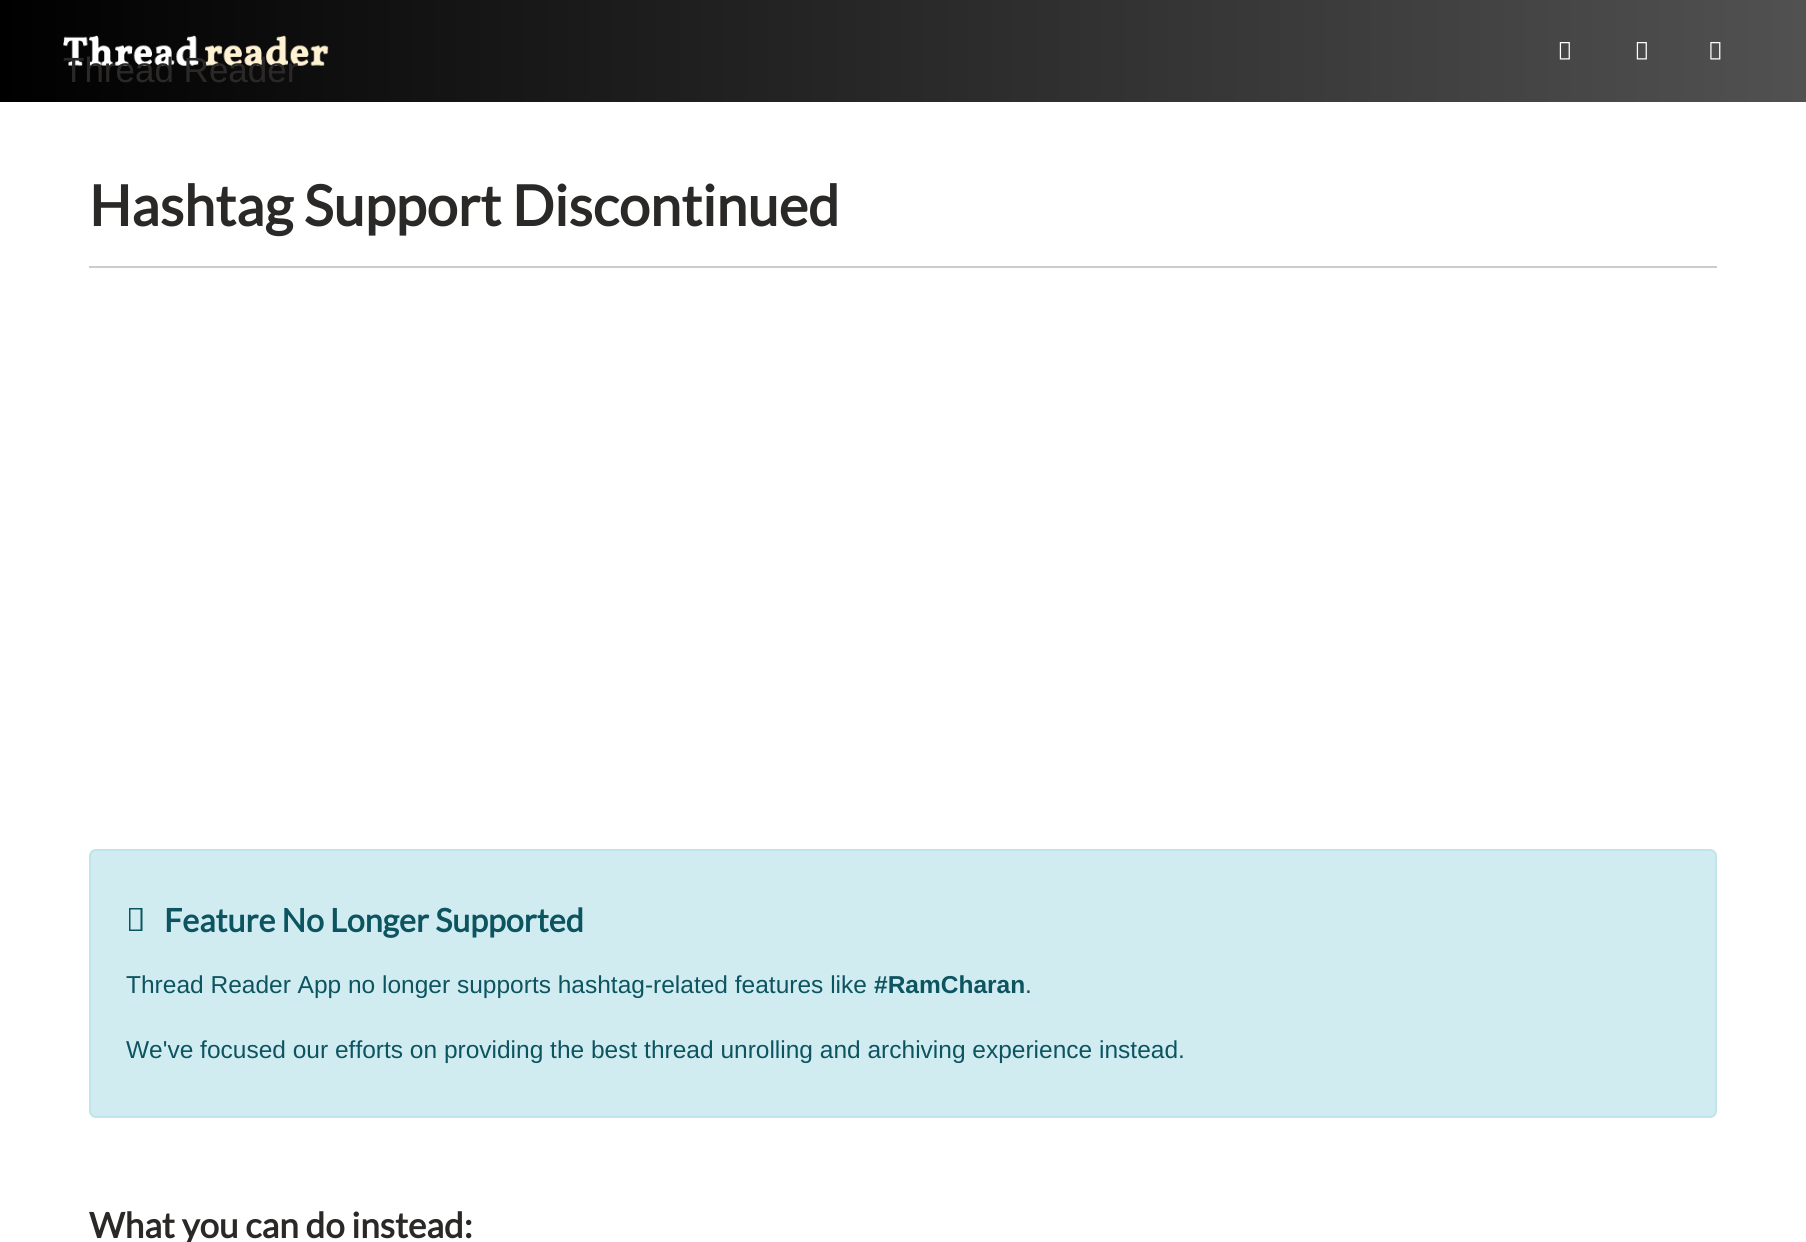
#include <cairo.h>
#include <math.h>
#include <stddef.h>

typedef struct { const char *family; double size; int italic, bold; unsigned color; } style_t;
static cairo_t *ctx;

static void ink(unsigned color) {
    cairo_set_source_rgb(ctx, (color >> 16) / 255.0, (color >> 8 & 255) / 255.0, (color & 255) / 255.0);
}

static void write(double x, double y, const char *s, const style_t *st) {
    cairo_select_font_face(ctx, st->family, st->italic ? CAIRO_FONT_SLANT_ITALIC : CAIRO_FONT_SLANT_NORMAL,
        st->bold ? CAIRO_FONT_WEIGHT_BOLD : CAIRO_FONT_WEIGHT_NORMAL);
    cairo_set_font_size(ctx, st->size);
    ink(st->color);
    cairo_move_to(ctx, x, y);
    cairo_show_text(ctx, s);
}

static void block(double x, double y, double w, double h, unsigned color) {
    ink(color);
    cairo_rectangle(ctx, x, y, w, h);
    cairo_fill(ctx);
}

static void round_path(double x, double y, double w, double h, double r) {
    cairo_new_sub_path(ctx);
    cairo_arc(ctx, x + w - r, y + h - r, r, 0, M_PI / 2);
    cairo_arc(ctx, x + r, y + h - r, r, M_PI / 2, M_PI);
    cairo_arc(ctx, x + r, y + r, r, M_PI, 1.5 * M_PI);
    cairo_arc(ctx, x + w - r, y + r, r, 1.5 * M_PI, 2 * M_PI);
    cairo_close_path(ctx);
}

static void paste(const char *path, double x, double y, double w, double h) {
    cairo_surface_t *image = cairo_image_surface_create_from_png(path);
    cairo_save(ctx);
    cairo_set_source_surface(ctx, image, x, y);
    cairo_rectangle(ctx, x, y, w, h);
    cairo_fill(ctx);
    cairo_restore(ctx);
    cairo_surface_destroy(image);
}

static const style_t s1 = {"Liberation Sans", 35, 0, 0, 0x2a2928};
static const style_t s2 = {"Lato", 56, 0, 1, 0x2a2928};
static const style_t s3 = {"Lato", 32.25, 0, 1, 0x0c5460};
static const style_t s4 = {"Liberation Sans", 24.5, 0, 0, 0x0c5460};
static const style_t s5 = {"Liberation Sans", 24.5, 0, 1, 0x0c5460};
static const style_t s6 = {"Lato", 35, 0, 1, 0x2a2928};

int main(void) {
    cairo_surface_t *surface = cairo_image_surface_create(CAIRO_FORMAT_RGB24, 1806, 1242);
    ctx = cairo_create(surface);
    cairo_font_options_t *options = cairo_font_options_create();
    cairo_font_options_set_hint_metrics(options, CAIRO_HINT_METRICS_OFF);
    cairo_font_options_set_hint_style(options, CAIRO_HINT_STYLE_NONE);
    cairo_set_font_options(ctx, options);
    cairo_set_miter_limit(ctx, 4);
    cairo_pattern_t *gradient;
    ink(0xffffff);
    cairo_paint(ctx);
    gradient = cairo_pattern_create_linear(0, 51, 1806, 51);
    cairo_pattern_add_color_stop_rgba(gradient, 0, 0, 0, 0, 1);
    cairo_pattern_add_color_stop_rgba(gradient, 1, 0.318, 0.318, 0.318, 1);
    cairo_set_source(ctx, gradient);
    cairo_pattern_destroy(gradient);
    cairo_rectangle(ctx, 0, 0, 1806, 102);
    cairo_fill(ctx);
    paste("pic1.png", 1559, 42, 11, 18);
    paste("pic2.png", 1636, 42, 11, 18);
    paste("pic3.png", 1710, 42, 11, 18);
    paste("pic4.png", 63, 35, 266, 31);
    write(63, 82, "Thread Reader", &s1);
    block(89, 266, 1628, 2, 0xcccccc);
    write(89, 226, "Hashtag Support Discontinued", &s2);
    ink(0xd1ecf1);
    round_path(90, 850, 1626, 267, 6);
    cairo_fill_preserve(ctx);
    ink(0xbee5eb);
    cairo_stroke(ctx);
    ink(0x0c5460);
    cairo_new_path(ctx);
    cairo_move_to(ctx, 129, 931);
    cairo_line_to(ctx, 129, 908);
    cairo_line_to(ctx, 142.5, 908);
    cairo_line_to(ctx, 142.5, 931);
    cairo_close_path(ctx);
    cairo_move_to(ctx, 130.5, 929.5);
    cairo_line_to(ctx, 140.5, 929.5);
    cairo_line_to(ctx, 140.5, 909.5);
    cairo_line_to(ctx, 130.5, 909.5);
    cairo_close_path(ctx);
    cairo_fill(ctx);
    write(164, 932, "Feature No Longer Supported", &s3);
    write(126, 993, "Thread Reader App no longer supports hashtag-related features like", &s4);
    write(874, 993, "#RamCharan", &s5);
    write(1025, 993, ".", &s4);
    write(126, 1058, "We've focused our efforts on providing the best thread unrolling and archiving experience instead.", &s4);
    write(89, 1238, "What you can do instead:", &s6);
    cairo_surface_write_to_png(surface, "screenshot.png");
    cairo_font_options_destroy(options);
    cairo_destroy(ctx);
    cairo_surface_destroy(surface);
    return 0;
}
